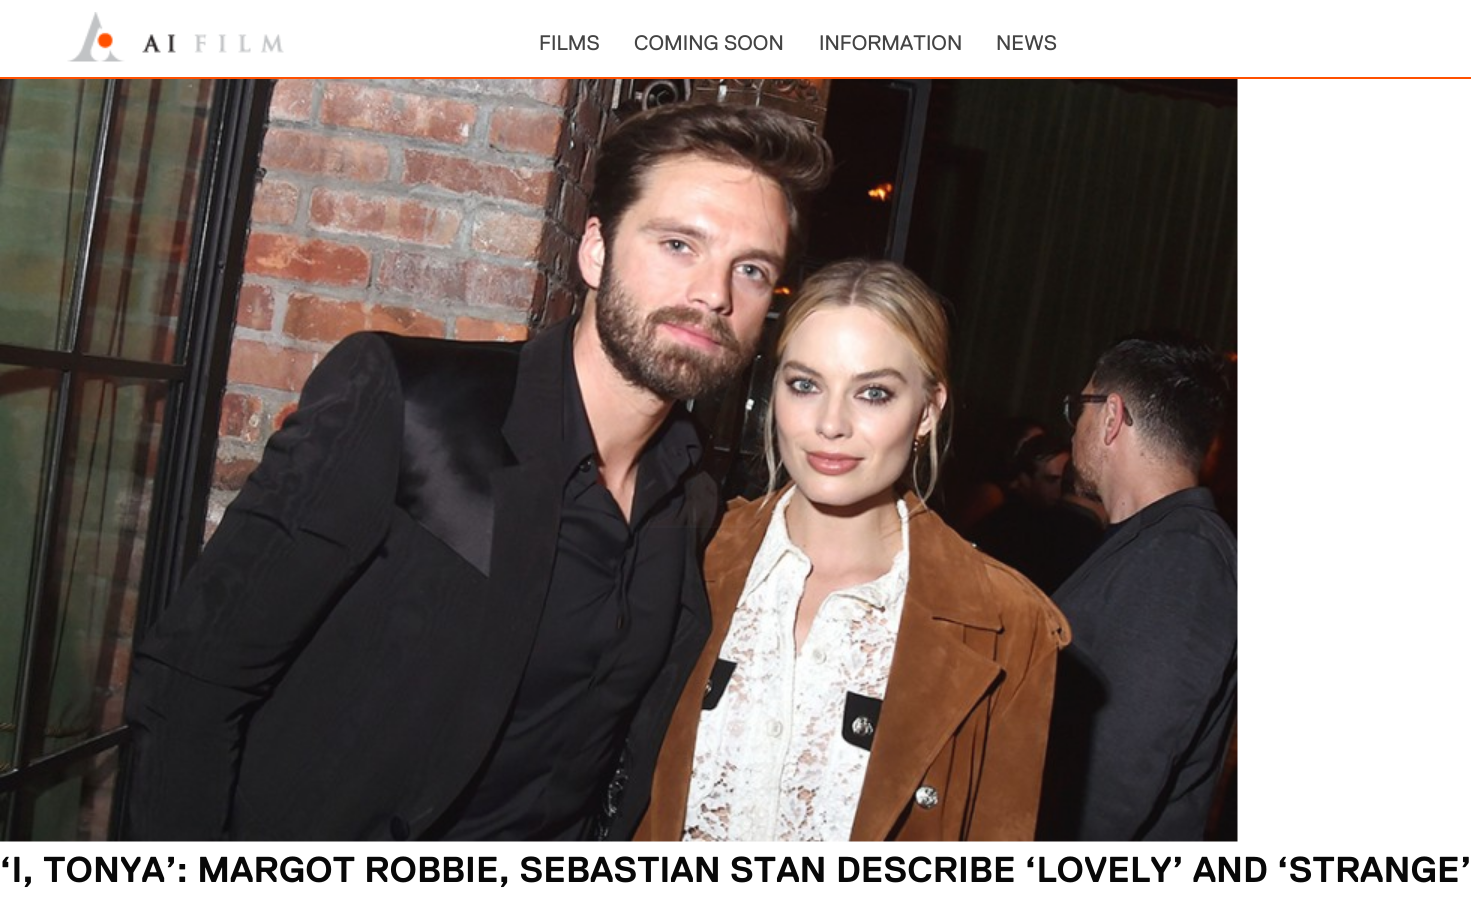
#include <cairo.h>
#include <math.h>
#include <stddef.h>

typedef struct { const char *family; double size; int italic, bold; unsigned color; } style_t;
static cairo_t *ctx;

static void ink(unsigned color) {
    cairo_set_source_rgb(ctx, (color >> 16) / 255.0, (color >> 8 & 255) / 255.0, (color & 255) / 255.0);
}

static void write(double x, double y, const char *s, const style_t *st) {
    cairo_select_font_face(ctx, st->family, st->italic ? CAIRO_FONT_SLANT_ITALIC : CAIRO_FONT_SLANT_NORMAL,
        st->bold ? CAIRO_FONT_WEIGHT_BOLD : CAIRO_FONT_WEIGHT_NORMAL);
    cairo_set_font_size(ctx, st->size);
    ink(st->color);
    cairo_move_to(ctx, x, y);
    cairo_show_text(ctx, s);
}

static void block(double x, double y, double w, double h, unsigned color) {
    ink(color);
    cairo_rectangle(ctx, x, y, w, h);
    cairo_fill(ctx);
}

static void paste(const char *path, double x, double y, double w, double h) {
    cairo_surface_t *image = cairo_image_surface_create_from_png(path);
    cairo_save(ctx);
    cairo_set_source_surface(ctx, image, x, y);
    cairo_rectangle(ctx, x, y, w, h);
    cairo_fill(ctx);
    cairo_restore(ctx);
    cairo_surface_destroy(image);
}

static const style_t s1 = {"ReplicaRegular", 21, 0, 0, 0x444444};
static const style_t s2 = {"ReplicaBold", 36, 0, 1, 0x080808};

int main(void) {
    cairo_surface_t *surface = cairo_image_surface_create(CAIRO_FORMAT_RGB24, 1471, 906);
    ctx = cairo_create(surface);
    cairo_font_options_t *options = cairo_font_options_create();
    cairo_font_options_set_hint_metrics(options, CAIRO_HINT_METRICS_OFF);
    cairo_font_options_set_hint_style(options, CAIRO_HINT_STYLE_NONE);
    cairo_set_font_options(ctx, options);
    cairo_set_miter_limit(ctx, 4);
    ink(0xffffff);
    cairo_paint(ctx);
    block(0, 77, 1471, 2, 0xff5000);
    paste("pic1.png", 67, 12, 217, 50);
    write(539, 50, "FILMS", &s1);
    write(634, 50, "COMING SOON", &s1);
    write(819, 50, "INFORMATION", &s1);
    write(996, 50, "NEWS", &s1);
    paste("pic3.png", 0, 79, 1238, 763);
    paste("pic2.png", 647, 368, 170, 160);
    write(0, 882, "‘I, TONYA’: MARGOT ROBBIE, SEBASTIAN STAN DESCRIBE ‘LOVELY’ AND ‘STRANGE’", &s2);
    cairo_surface_write_to_png(surface, "screenshot.png");
    cairo_font_options_destroy(options);
    cairo_destroy(ctx);
    cairo_surface_destroy(surface);
    return 0;
}
